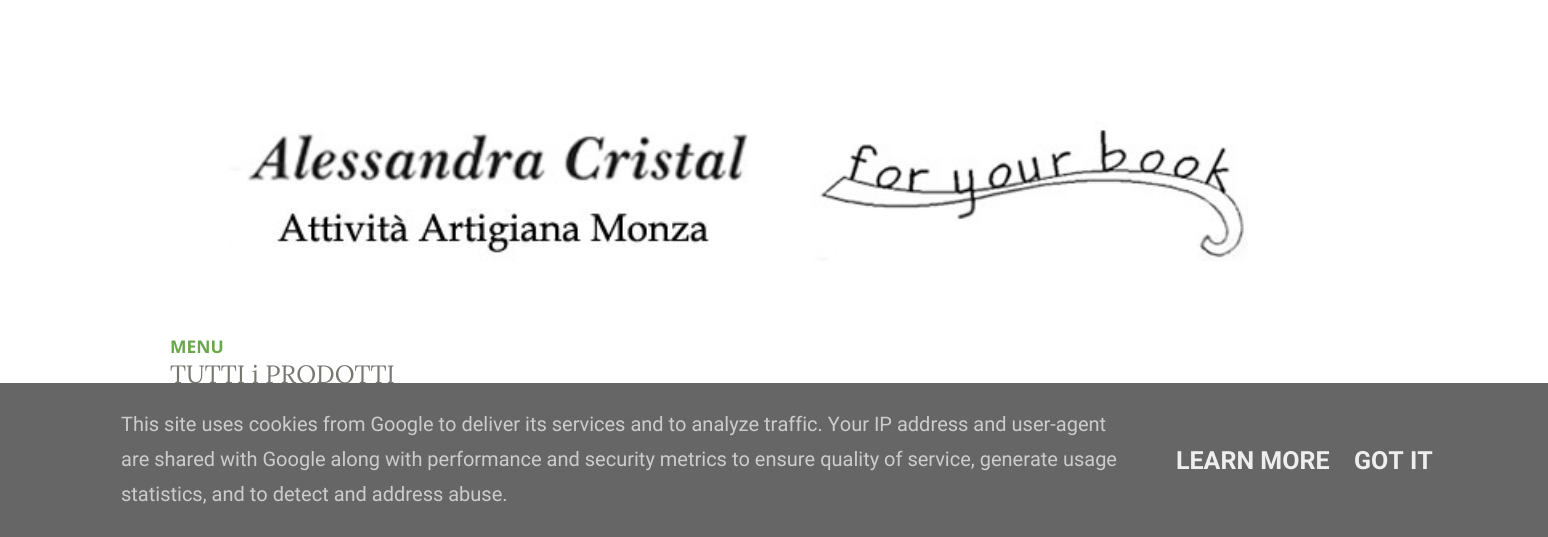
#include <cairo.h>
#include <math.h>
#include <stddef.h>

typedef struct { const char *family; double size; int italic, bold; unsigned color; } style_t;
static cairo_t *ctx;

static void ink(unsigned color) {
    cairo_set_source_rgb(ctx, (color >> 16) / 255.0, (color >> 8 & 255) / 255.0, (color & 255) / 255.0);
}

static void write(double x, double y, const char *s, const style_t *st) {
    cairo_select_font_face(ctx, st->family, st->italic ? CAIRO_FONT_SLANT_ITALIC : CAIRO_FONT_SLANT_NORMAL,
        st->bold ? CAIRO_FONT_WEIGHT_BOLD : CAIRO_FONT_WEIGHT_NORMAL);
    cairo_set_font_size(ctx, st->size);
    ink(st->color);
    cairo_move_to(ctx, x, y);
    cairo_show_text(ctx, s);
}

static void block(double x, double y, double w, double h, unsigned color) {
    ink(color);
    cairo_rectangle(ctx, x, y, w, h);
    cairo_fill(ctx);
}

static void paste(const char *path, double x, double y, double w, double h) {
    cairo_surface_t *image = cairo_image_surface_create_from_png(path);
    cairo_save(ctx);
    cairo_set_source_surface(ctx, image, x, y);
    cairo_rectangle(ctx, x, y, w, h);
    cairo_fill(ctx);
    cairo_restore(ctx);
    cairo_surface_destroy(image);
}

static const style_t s1 = {"Open Sans", 17.5, 0, 1, 0x6aa84f};
static const style_t s2 = {"Lora", 25, 0, 0, 0x767872};
static const style_t s3 = {"Roboto", 20, 0, 0, 0xcccccc};
static const style_t s4 = {"Roboto", 25, 0, 1, 0xeeeeee};

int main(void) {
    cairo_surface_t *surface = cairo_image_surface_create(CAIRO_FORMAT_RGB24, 1548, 537);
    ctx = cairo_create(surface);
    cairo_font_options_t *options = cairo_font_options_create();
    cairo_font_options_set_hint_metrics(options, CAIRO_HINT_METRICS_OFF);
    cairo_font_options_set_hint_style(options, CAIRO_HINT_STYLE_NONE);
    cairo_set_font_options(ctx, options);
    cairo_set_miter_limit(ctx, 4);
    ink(0xffffff);
    cairo_paint(ctx);
    paste("pic1.png", 229, 121, 1019, 140);
    write(170, 353, "MENU", &s1);
    write(170, 383, "TUTTI i PRODOTTI", &s2);
    block(0, 383, 1548, 154, 0x666666);
    write(121, 431, "This site uses cookies from Google to deliver its services and to analyze traffic. Your IP address and user-agent", &s3);
    write(121, 466, "are shared with Google along with performance and security metrics to ensure quality of service, generate usage", &s3);
    write(121, 501, "statistics, and to detect and address abuse.", &s3);
    write(1176, 469, "LEARN MORE", &s4);
    write(1354, 469, "GOT IT", &s4);
    cairo_surface_write_to_png(surface, "screenshot.png");
    cairo_font_options_destroy(options);
    cairo_destroy(ctx);
    cairo_surface_destroy(surface);
    return 0;
}
